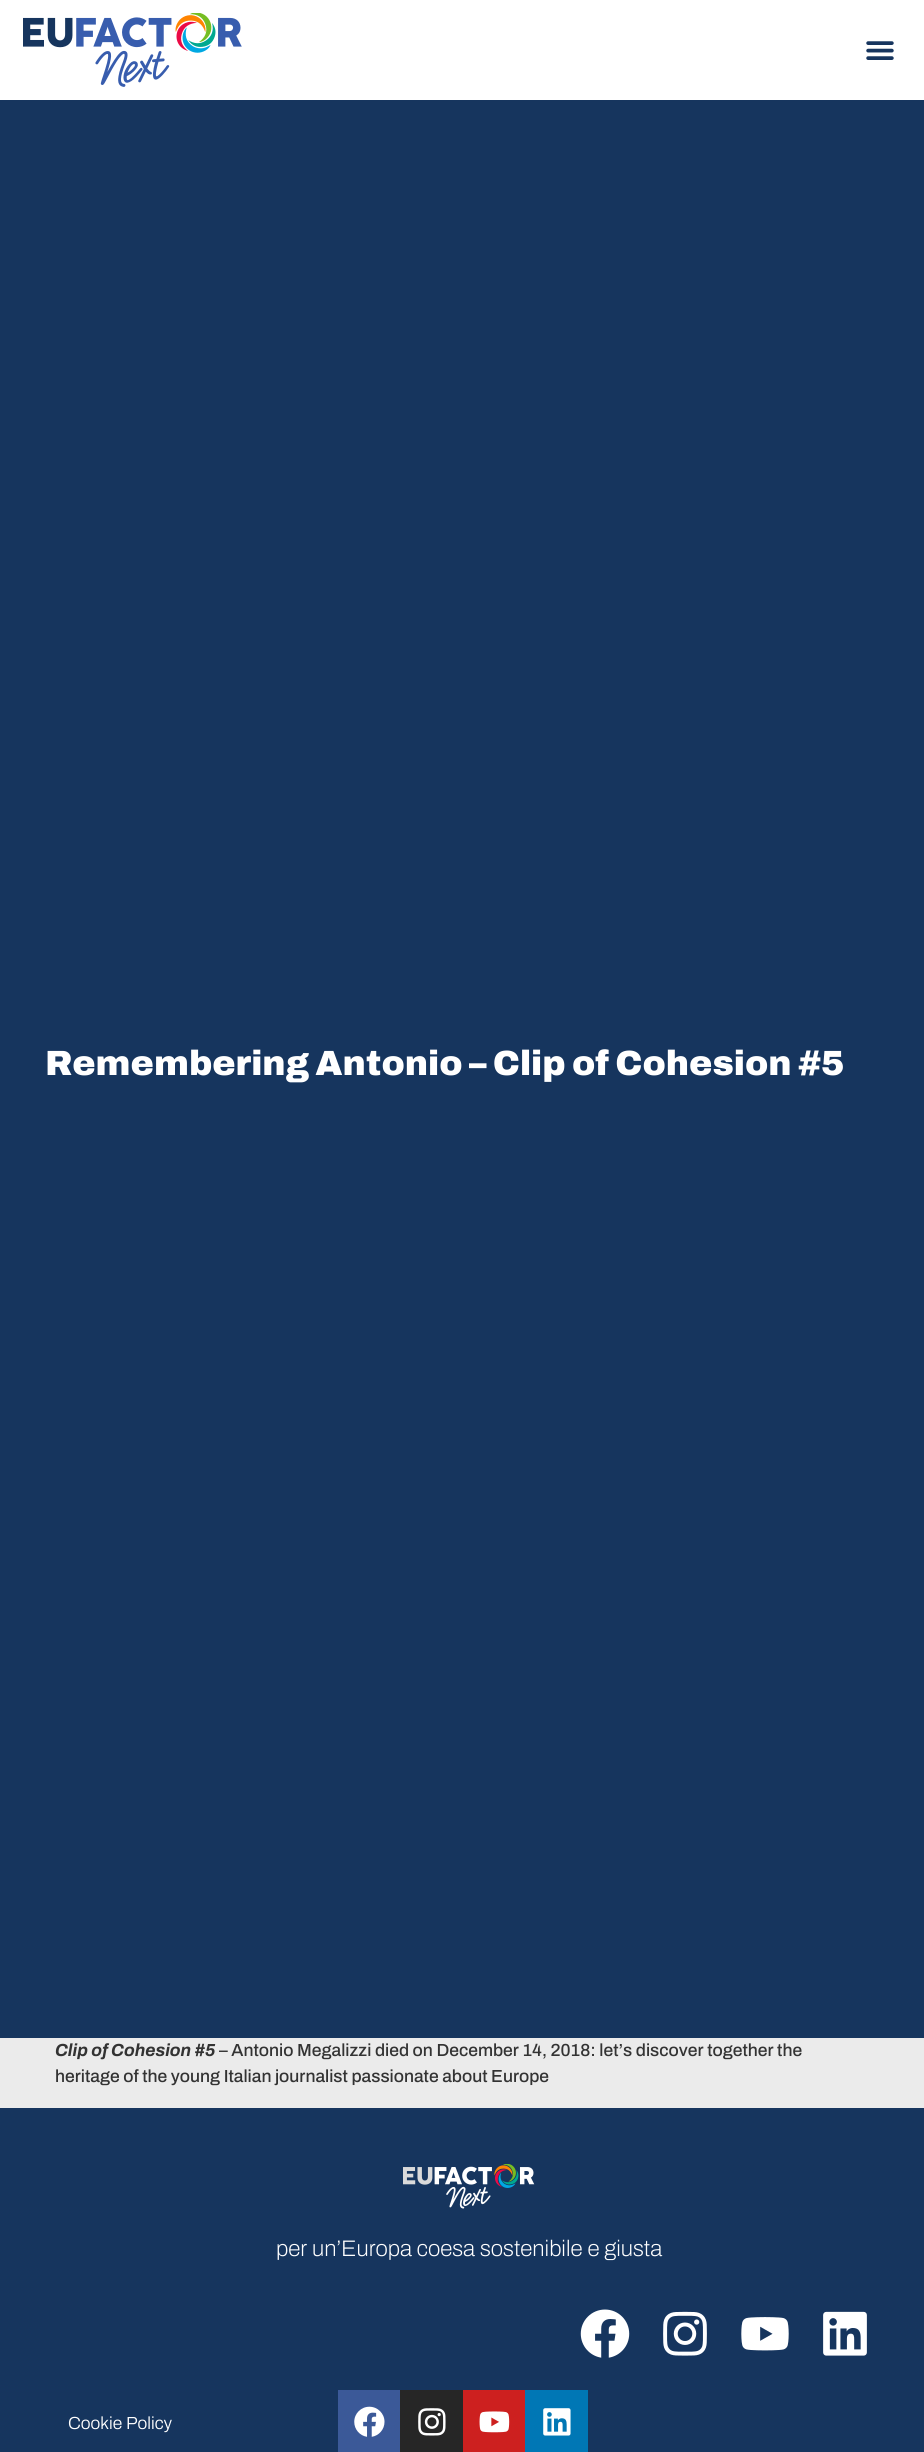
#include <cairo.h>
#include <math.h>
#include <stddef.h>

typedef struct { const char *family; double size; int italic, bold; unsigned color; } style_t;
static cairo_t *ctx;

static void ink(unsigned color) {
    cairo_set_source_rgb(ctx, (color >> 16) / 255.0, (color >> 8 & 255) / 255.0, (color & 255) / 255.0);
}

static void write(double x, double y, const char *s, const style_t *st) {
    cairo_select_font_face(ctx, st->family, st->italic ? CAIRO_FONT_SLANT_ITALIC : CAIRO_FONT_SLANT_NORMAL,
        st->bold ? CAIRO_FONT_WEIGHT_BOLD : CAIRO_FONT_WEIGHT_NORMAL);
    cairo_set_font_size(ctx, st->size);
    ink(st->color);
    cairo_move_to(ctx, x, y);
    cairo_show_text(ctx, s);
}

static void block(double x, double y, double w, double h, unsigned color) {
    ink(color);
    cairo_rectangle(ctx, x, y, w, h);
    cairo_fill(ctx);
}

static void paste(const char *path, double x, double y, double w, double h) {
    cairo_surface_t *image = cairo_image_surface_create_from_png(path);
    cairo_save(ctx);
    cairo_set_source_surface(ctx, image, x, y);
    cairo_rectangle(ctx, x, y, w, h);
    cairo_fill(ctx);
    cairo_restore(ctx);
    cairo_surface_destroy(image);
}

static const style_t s1 = {"Archivo Black", 35, 0, 0, 0xffffff};
static const style_t s2 = {"Archivo", 17.5, 1, 1, 0x333333};
static const style_t s3 = {"Archivo Medium", 17.5, 0, 0, 0x333333};
static const style_t s4 = {"Archivo ExtraLight", 22.5, 0, 0, 0xffffff};
static const style_t s5 = {"Archivo Light", 17.5, 0, 0, 0xffffff};

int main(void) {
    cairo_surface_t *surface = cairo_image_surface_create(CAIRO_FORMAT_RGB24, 924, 2452);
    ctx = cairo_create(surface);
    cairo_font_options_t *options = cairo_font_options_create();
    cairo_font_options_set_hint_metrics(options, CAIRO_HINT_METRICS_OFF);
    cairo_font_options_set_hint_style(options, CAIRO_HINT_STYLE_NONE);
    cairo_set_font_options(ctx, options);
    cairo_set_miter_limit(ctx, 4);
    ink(0xebebeb);
    cairo_paint(ctx);
    block(0, 0, 924, 100, 0xffffff);
    paste("pic1.png", 23, 13, 219, 74);
    paste("pic2.png", 866, 41, 28, 19);
    block(0, 100, 924, 1938, 0x16355e);
    write(45, 1075, "Remembering Antonio – Clip of Cohesion #5", &s1);
    write(55, 2056, "Clip of Cohesion #5", &s2);
    write(219, 2056, "– Antonio Megalizzi died on December 14, 2018: let’s discover together the", &s3);
    write(55, 2082, "heritage of the young Italian journalist passionate about Europe", &s3);
    block(0, 2108, 924, 344, 0x16355e);
    block(338, 2390, 62, 62, 0x3b5998);
    paste("pic3.png", 354, 2406, 31, 31);
    block(400, 2390, 63, 62, 0x262626);
    paste("pic4.png", 418, 2408, 28, 28);
    block(463, 2390, 62, 62, 0xcd201f);
    paste("pic5.png", 479, 2411, 31, 22);
    block(525, 2390, 63, 62, 0x0077b5);
    paste("pic6.png", 543, 2408, 28, 28);
    paste("pic7.png", 403, 2164, 132, 45);
    write(276, 2256, "per un’Europa coesa sostenibile e giusta", &s4);
    paste("pic8.png", 580, 2309, 50, 49);
    paste("pic9.png", 663, 2311, 44, 45);
    paste("pic10.png", 741, 2317, 48, 34);
    paste("pic11.png", 823, 2311, 44, 45);
    write(68, 2429, "Cookie Policy", &s5);
    cairo_surface_write_to_png(surface, "screenshot.png");
    cairo_font_options_destroy(options);
    cairo_destroy(ctx);
    cairo_surface_destroy(surface);
    return 0;
}
